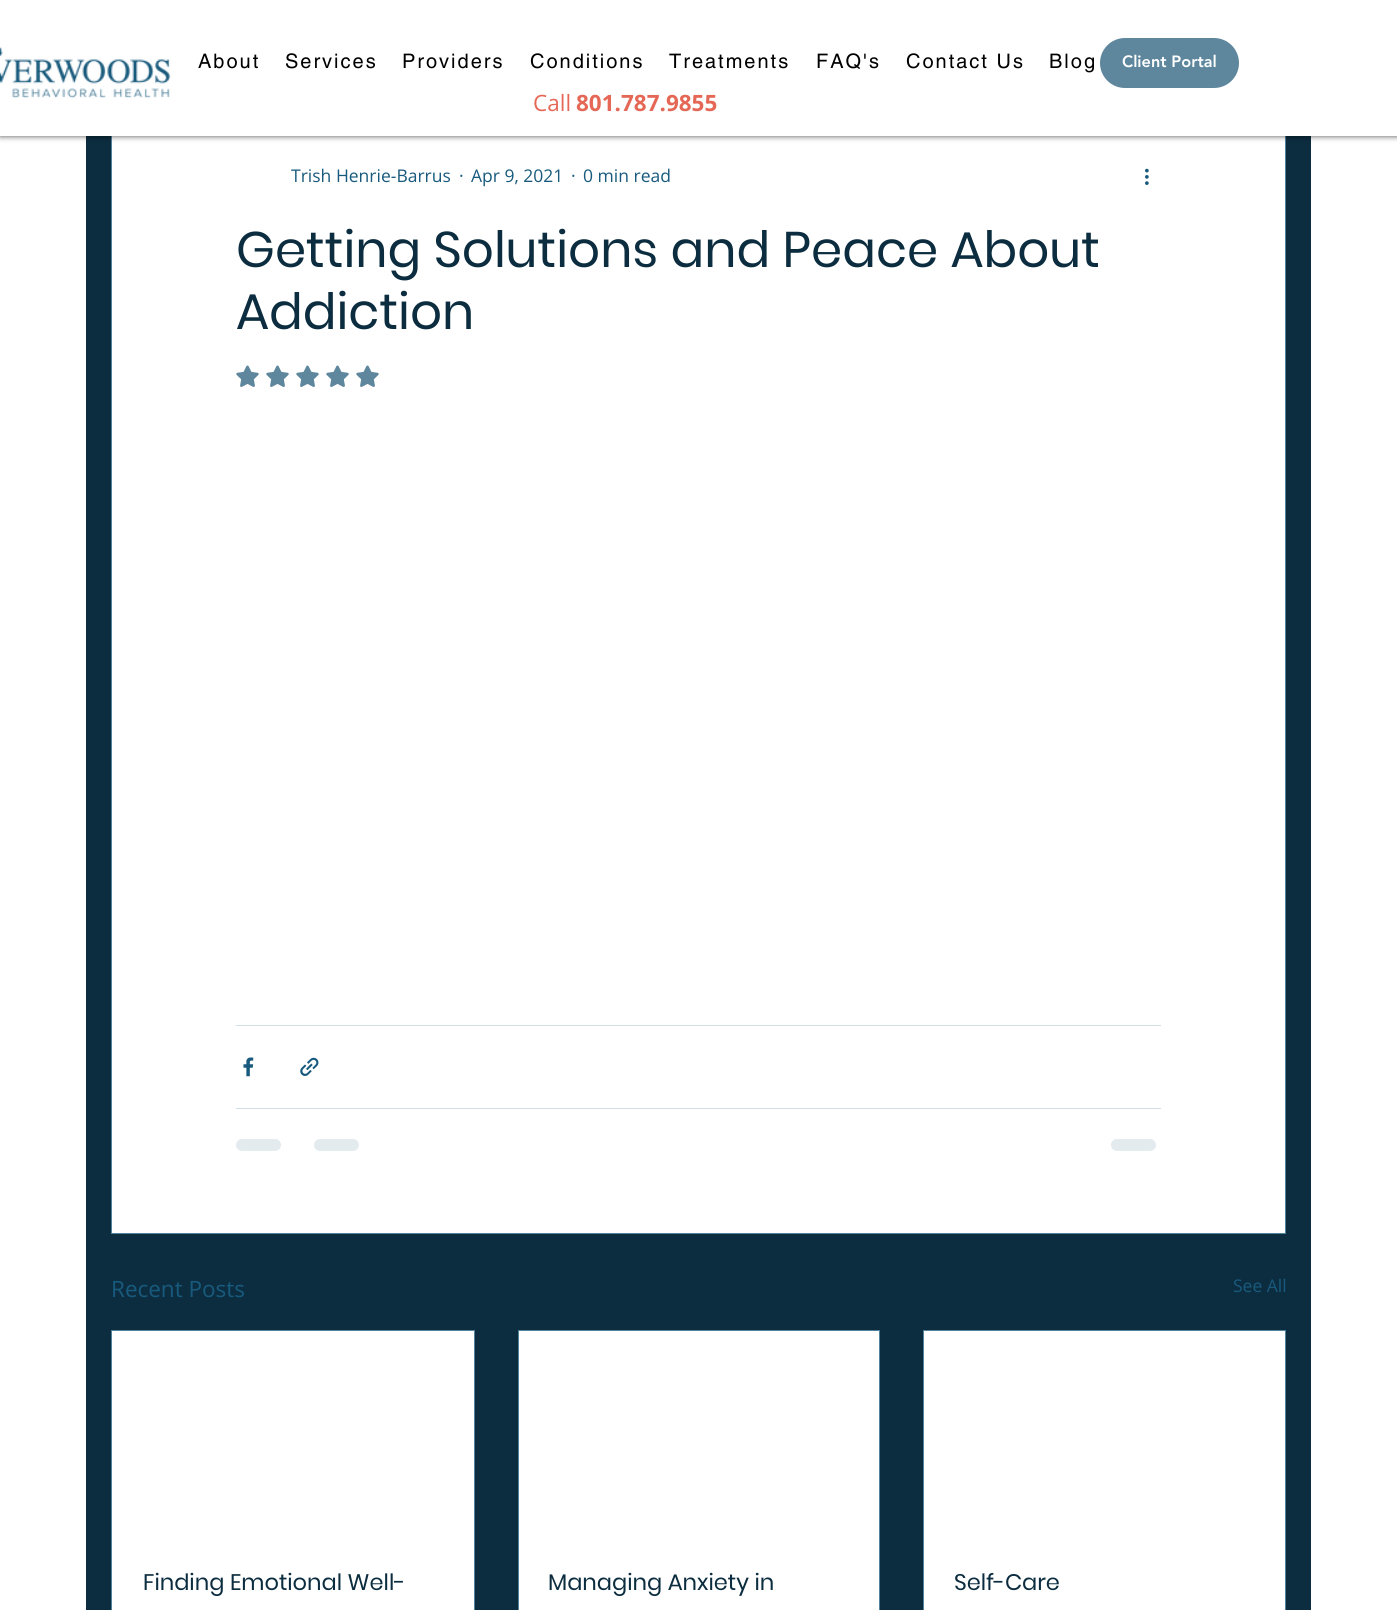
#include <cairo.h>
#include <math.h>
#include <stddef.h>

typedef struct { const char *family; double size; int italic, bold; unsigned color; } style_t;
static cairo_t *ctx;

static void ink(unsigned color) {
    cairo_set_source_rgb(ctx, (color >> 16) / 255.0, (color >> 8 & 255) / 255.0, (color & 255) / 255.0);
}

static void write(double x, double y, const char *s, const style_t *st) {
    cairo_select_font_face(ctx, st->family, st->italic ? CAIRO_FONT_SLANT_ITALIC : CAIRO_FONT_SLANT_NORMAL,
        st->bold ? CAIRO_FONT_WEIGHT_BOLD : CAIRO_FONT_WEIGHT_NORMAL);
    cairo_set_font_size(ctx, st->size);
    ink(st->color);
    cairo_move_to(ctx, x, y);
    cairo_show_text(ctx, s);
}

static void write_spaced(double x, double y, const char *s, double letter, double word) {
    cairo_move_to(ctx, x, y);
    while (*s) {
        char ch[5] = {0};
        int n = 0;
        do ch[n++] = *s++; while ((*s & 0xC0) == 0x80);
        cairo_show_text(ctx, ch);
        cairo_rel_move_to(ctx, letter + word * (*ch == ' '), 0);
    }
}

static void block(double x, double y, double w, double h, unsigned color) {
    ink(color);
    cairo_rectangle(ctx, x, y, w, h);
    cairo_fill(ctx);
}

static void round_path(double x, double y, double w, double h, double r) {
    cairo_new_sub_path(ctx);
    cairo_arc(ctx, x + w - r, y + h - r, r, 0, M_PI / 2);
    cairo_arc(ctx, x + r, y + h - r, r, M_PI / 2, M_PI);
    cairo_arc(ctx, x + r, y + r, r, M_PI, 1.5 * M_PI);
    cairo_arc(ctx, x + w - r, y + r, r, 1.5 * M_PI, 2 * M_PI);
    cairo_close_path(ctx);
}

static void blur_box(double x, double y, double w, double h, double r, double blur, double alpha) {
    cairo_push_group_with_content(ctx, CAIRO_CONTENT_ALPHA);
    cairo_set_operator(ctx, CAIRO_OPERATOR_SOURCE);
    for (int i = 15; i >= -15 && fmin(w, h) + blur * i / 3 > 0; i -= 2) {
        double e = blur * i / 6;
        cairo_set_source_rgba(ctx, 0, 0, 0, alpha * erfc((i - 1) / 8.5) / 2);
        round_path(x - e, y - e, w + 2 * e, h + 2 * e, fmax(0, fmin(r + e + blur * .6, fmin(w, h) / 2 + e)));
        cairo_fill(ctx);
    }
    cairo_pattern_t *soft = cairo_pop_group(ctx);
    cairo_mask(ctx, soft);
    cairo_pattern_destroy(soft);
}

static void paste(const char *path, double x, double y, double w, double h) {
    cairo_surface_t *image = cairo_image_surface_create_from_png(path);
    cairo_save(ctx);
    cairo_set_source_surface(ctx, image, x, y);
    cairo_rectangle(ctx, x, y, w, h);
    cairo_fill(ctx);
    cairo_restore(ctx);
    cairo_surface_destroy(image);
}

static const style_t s1 = {"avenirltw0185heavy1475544 Black", 16.25, 0, 0, 0xffffff};
static const style_t s2 = {"Open Sans", 22.5, 0, 0, 0xe56857};
static const style_t s3 = {"Open Sans", 22.5, 0, 1, 0xe56857};
static const style_t s4 = {"Open Sans", 17.5, 0, 0, 0x185a7d};
static const style_t s5 = {"Poppins", 50, 0, 0, 0x0c2d3f};
static const style_t s6 = {"Open Sans", 22.5, 0, 0, 0x185a7d};
static const style_t s7 = {"Poppins", 22.5, 0, 0, 0x0c2d3f};

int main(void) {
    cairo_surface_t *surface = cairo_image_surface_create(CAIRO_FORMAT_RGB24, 1397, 1610);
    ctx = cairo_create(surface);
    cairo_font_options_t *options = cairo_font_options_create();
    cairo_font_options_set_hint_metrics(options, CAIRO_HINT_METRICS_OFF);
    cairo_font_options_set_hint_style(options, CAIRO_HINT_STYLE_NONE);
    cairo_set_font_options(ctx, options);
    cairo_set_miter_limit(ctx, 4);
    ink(0xffffff);
    cairo_paint(ctx);
    block(86, 136, 1225, 1474, 0x0c2d3f);
    block(112, 136, 1173, 1097, 0xffffff);
    cairo_rectangle(ctx, 111.5, 79.5, 1174, 1154);
    ink(0x52839e);
    cairo_set_line_width(ctx, 1);
    cairo_stroke(ctx);
    ink(0x000000);
    blur_box(0, 0, 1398, 136, 0, 3, 0.7);
    block(0, 0, 1397, 136, 0xffffff);
    paste("pic1.png", 0, 47, 171, 52);
    cairo_select_font_face(ctx, "helvetica", CAIRO_FONT_SLANT_NORMAL, CAIRO_FONT_WEIGHT_NORMAL);
    cairo_set_font_size(ctx, 20);
    ink(0x000000);
    write_spaced(198, 68, "About", 2, 0);
    write_spaced(285, 68, "Services", 2, 0);
    write_spaced(402, 68, "Providers", 2, 0);
    write_spaced(530, 68, "Conditions", 2, 0);
    write_spaced(669, 68, "Treatments", 2, 0);
    write_spaced(816, 68, "FAQ's", 2, 0);
    write_spaced(906, 68, "Contact Us", 2, 0);
    cairo_save(ctx);
    cairo_rectangle(ctx, 188, 30, 906, 65);
    cairo_clip(ctx);
    write_spaced(1049, 68, "Blog", 2, 0);
    cairo_restore(ctx);
    ink(0x5e879e);
    round_path(1100, 38, 139, 50, 25);
    cairo_fill(ctx);
    write(1122, 67, "Client Portal", &s1);
    write(533, 111, "Call", &s2);
    write(576, 111, "801.787.9855", &s3);
    write(291, 182, "Trish Henrie-Barrus", &s4);
    write(459, 182, "·", &s4);
    write(471, 182, "Apr 9, 2021", &s4);
    write(571, 182, "·", &s4);
    write(583, 182, "0 min read", &s4);
    paste("pic2.png", 1145, 168, 4, 17);
    write(236, 267, "Getting Solutions and Peace About", &s5);
    write(236, 329, "Addiction", &s5);
    paste("pic3.png", 236, 365, 23, 22);
    paste("pic3.png", 266, 365, 23, 22);
    paste("pic3.png", 296, 365, 23, 22);
    paste("pic3.png", 326, 365, 23, 22);
    paste("pic3.png", 356, 365, 23, 22);
    block(236, 1025, 925, 1, 0xd1dee5);
    paste("pic4.png", 243, 1057, 11, 20);
    paste("pic5.png", 300, 1057, 19, 19);
    block(236, 1108, 925, 1, 0xd1dee5);
    ink(0xe3ebef);
    round_path(236, 1139, 45, 12, 6);
    cairo_fill(ctx);
    round_path(314, 1139, 45, 12, 6);
    cairo_fill(ctx);
    round_path(1111, 1139, 45, 12, 6);
    cairo_fill(ctx);
    write(111, 1297, "Recent Posts", &s6);
    write(1233, 1292, "See All", &s4);
    ink(0xffffff);
    cairo_rectangle(ctx, 111.5, 1330.5, 363, 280);
    cairo_fill_preserve(ctx);
    ink(0x52839e);
    cairo_stroke(ctx);
    write(143, 1590, "Finding Emotional Well-", &s7);
    ink(0xffffff);
    cairo_rectangle(ctx, 518.5, 1330.5, 361, 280);
    cairo_fill_preserve(ctx);
    ink(0x52839e);
    cairo_stroke(ctx);
    write(548, 1590, "Managing Anxiety in", &s7);
    ink(0xffffff);
    cairo_rectangle(ctx, 923.5, 1330.5, 362, 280);
    cairo_fill_preserve(ctx);
    ink(0x52839e);
    cairo_stroke(ctx);
    write(954, 1590, "Self-Care", &s7);
    cairo_surface_write_to_png(surface, "screenshot.png");
    cairo_font_options_destroy(options);
    cairo_destroy(ctx);
    cairo_surface_destroy(surface);
    return 0;
}
